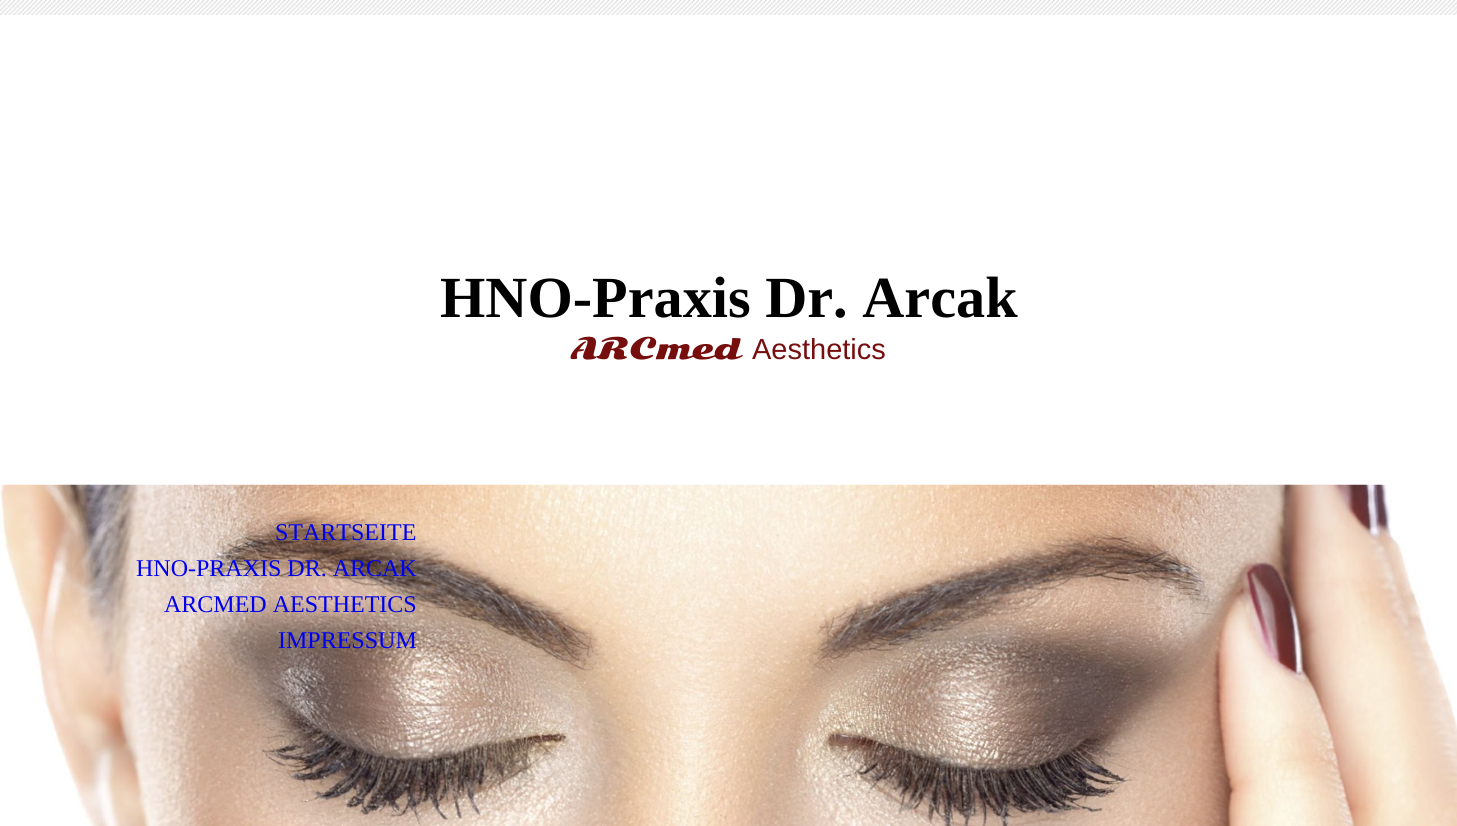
#include <cairo.h>
#include <math.h>
#include <stddef.h>

typedef struct { const char *family; double size; int italic, bold; unsigned color; } style_t;
static cairo_t *ctx;

static void ink(unsigned color) {
    cairo_set_source_rgb(ctx, (color >> 16) / 255.0, (color >> 8 & 255) / 255.0, (color & 255) / 255.0);
}

static void write(double x, double y, const char *s, const style_t *st) {
    cairo_select_font_face(ctx, st->family, st->italic ? CAIRO_FONT_SLANT_ITALIC : CAIRO_FONT_SLANT_NORMAL,
        st->bold ? CAIRO_FONT_WEIGHT_BOLD : CAIRO_FONT_WEIGHT_NORMAL);
    cairo_set_font_size(ctx, st->size);
    ink(st->color);
    cairo_move_to(ctx, x, y);
    cairo_show_text(ctx, s);
}

static void paste(const char *path, double x, double y, double w, double h) {
    cairo_surface_t *image = cairo_image_surface_create_from_png(path);
    cairo_save(ctx);
    cairo_set_source_surface(ctx, image, x, y);
    cairo_rectangle(ctx, x, y, w, h);
    cairo_fill(ctx);
    cairo_restore(ctx);
    cairo_surface_destroy(image);
}

static const style_t s1 = {"Liberation Serif", 58.25, 0, 1, 0x000000};
static const style_t s2 = {"Sonsie One", 29, 0, 0, 0x770e0e};
static const style_t s3 = {"Liberation Sans", 29, 0, 0, 0x770e0e};
static const style_t s4 = {"Liberation Serif", 24, 0, 0, 0x0000ee};

int main(void) {
    cairo_surface_t *surface = cairo_image_surface_create(CAIRO_FORMAT_RGB24, 1457, 826);
    ctx = cairo_create(surface);
    cairo_font_options_t *options = cairo_font_options_create();
    cairo_font_options_set_hint_metrics(options, CAIRO_HINT_METRICS_OFF);
    cairo_font_options_set_hint_style(options, CAIRO_HINT_STYLE_NONE);
    cairo_set_font_options(ctx, options);
    cairo_set_miter_limit(ctx, 4);
    ink(0xffffff);
    cairo_paint(ctx);
    paste("pic1.png", 0, 0, 1457, 15);
    write(440, 317, "HNO-Praxis Dr. Arcak", &s1);
    write(571, 359, "ARCmed", &s2);
    write(752, 359, "Aesthetics", &s3);
    paste("pic2.png", 0, 484, 1457, 342);
    write(275, 540, "STARTSEITE", &s4);
    write(136, 576, "HNO-PRAXIS DR. ARCAK", &s4);
    write(164, 612, "ARCMED AESTHETICS", &s4);
    write(278, 648, "IMPRESSUM", &s4);
    cairo_surface_write_to_png(surface, "screenshot.png");
    cairo_font_options_destroy(options);
    cairo_destroy(ctx);
    cairo_surface_destroy(surface);
    return 0;
}
